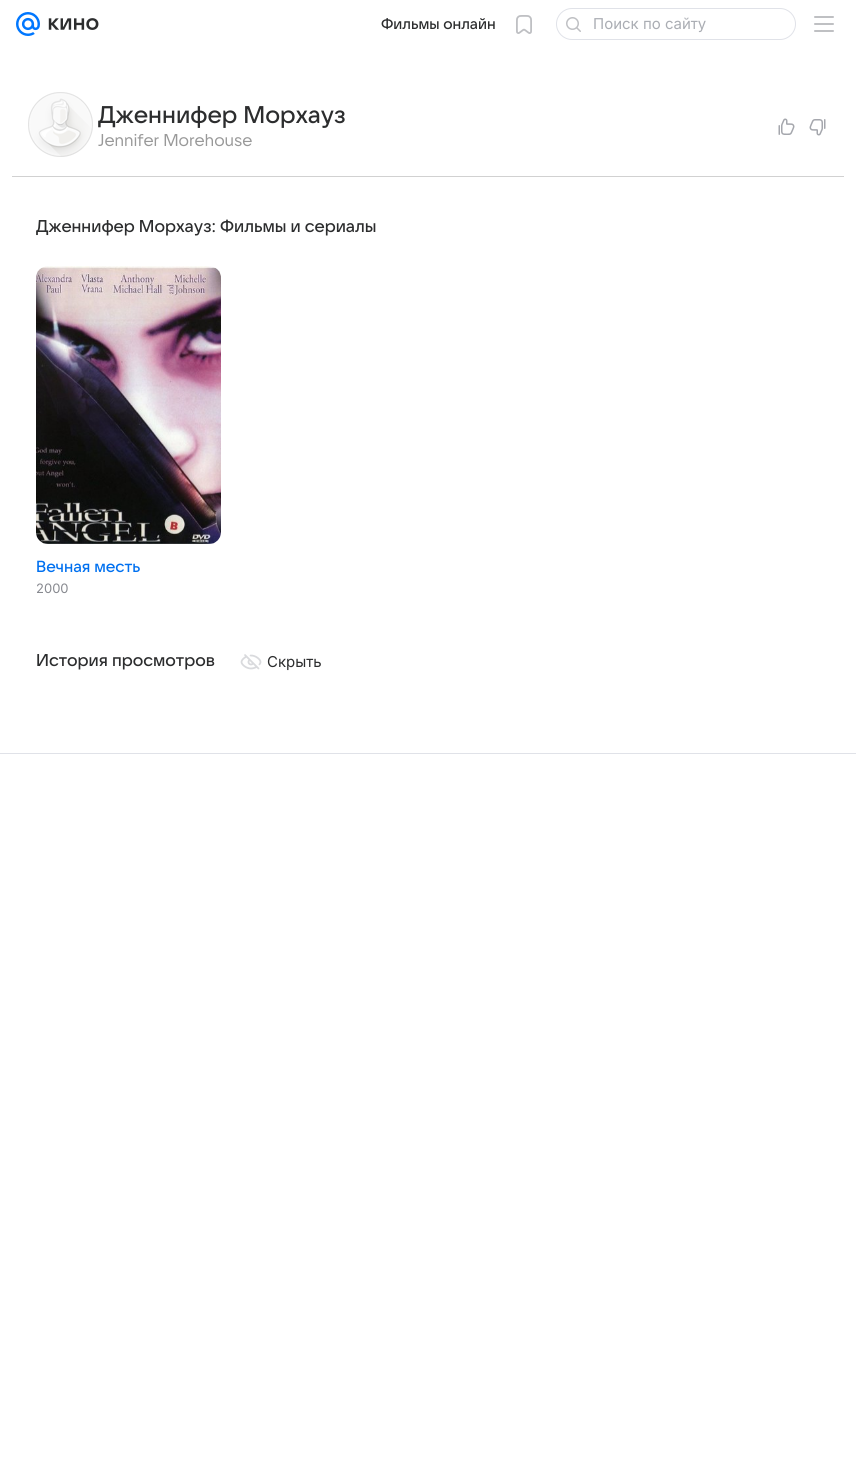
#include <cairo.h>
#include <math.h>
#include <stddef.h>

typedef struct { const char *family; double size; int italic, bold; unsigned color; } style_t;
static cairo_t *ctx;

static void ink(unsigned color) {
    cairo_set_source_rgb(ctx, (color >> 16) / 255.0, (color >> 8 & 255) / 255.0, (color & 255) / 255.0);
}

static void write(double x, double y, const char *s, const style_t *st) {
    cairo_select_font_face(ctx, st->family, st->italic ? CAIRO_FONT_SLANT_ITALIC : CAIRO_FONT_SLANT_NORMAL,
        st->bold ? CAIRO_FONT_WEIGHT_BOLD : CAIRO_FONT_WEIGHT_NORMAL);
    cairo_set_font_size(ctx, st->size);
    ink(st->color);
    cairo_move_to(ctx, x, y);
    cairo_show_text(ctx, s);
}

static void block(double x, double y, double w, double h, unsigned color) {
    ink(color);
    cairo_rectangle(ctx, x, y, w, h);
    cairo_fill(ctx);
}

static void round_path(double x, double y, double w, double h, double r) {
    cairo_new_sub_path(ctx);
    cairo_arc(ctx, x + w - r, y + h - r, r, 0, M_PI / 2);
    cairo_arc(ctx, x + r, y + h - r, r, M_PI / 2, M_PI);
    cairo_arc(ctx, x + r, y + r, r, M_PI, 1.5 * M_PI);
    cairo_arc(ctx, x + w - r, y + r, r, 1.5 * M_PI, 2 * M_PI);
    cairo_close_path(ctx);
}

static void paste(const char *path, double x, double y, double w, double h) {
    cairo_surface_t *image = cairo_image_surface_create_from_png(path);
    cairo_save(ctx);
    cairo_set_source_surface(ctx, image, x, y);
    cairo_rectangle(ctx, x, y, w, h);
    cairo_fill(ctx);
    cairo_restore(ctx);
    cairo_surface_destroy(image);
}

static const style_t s1 = {"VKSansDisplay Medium", 15, 0, 0, 0x2c2d2e};
static const style_t s2 = {"Inter", 15, 0, 0, 0xaaadb3};
static const style_t s3 = {"VKSansDisplay Medium", 24, 0, 0, 0x2c2d2e};
static const style_t s4 = {"VKSansDisplay", 17, 0, 0, 0x999999};
static const style_t s5 = {"VKSansDisplay Medium", 17, 0, 0, 0x2c2d2e};
static const style_t s6 = {"VKSansDisplay Medium", 16, 0, 0, 0x0070f0};
static const style_t s7 = {"Inter", 13, 0, 0, 0x87898f};
static const style_t s8 = {"Inter", 15, 0, 0, 0x2c2d2e};

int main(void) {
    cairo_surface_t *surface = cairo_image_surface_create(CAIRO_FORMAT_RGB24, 856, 1479);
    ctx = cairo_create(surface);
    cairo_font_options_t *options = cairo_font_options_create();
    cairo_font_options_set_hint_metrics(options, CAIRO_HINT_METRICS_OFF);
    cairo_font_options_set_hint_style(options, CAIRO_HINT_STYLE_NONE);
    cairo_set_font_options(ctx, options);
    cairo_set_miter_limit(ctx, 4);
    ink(0xffffff);
    cairo_paint(ctx);
    paste("pic1.png", 16, 12, 24, 24);
    paste("pic2.png", 48, 18, 51, 12);
    write(381, 29, "Фильмы онлайн", &s1);
    paste("pic3.png", 516, 15, 16, 19);
    round_path(556.5, 8.5, 239, 31, 15.5);
    ink(0xe0e2e8);
    cairo_set_line_width(ctx, 1);
    cairo_stroke(ctx);
    paste("pic4.png", 566, 17, 15, 15);
    write(593, 29, "Поиск по сайту", &s2);
    paste("pic5.png", 814, 16, 20, 16);
    block(12, 176, 832, 1, 0xd1d1d1);
    paste("pic6.png", 28, 92, 65, 65);
    write(98, 123, "Дженнифер Морхауз", &s3);
    write(98, 146, "Jennifer Morehouse", &s4);
    paste("pic7.png", 778, 118, 17, 17);
    paste("pic8.png", 809, 119, 17, 17);
    write(36, 232, "Дженнифер Морхауз: Фильмы и сериалы", &s5);
    paste("pic9.png", 36, 266, 185, 278);
    write(36, 572, "Вечная месть", &s6);
    write(36, 593, "2000", &s7);
    write(36, 666, "История просмотров", &s5);
    paste("pic10.png", 240, 654, 22, 16);
    write(267, 667, "Скрыть", &s8);
    block(0, 753, 856, 1, 0xe0e2e8);
    cairo_surface_write_to_png(surface, "screenshot.png");
    cairo_font_options_destroy(options);
    cairo_destroy(ctx);
    cairo_surface_destroy(surface);
    return 0;
}
